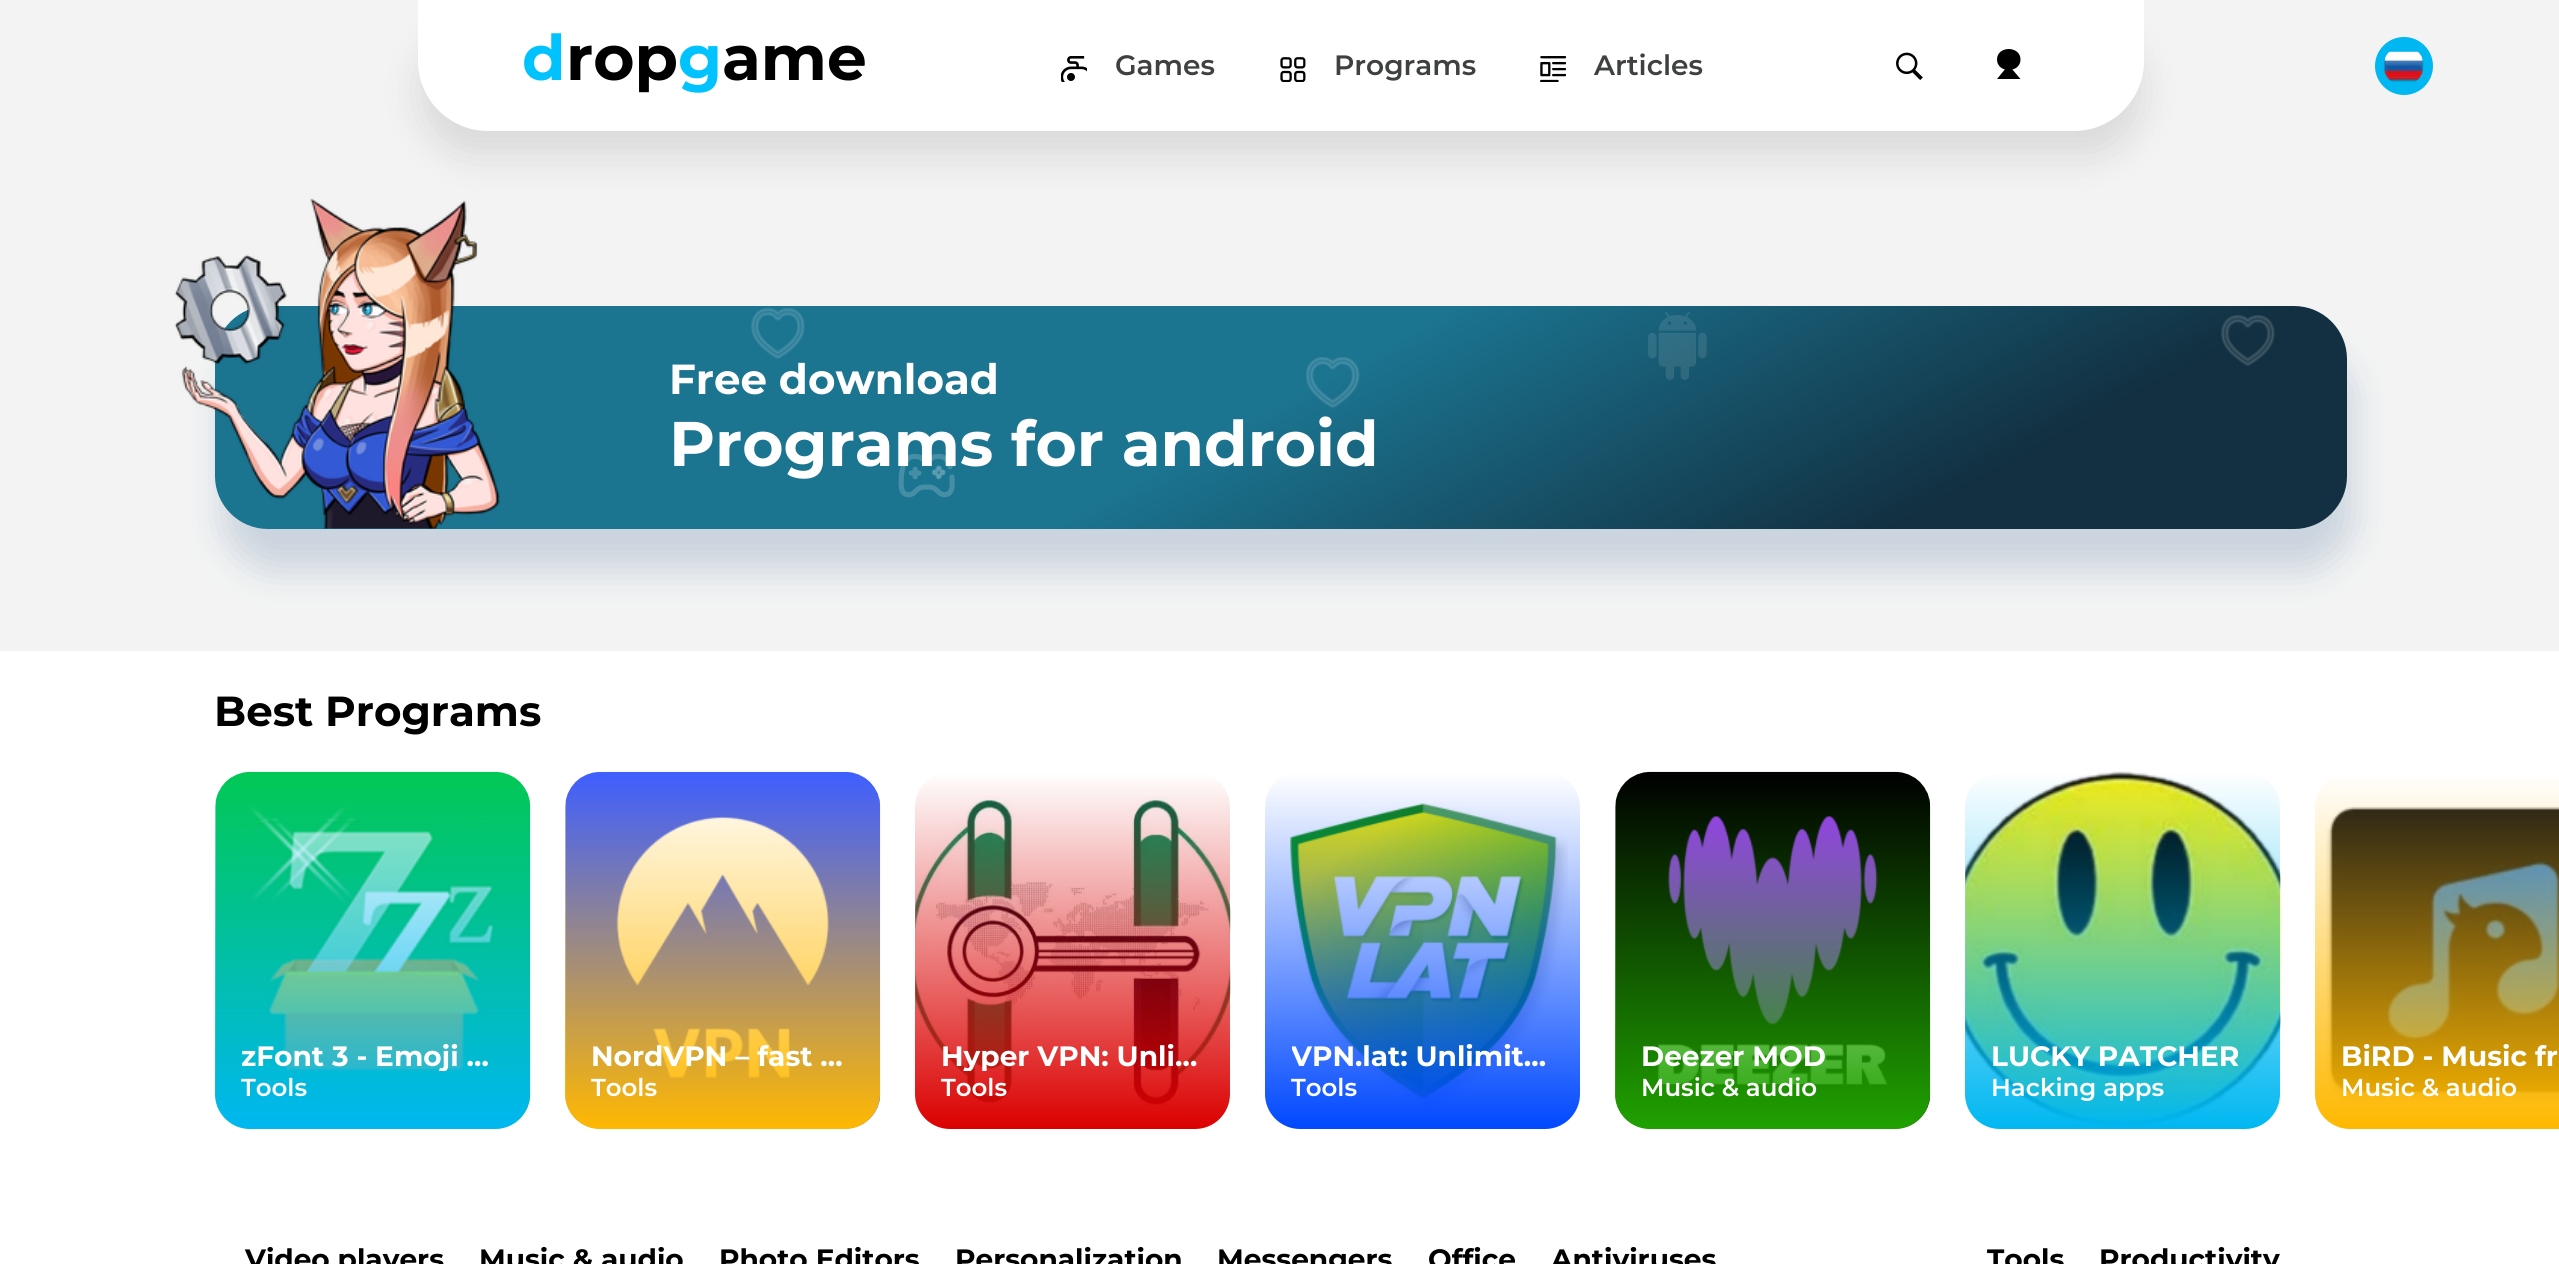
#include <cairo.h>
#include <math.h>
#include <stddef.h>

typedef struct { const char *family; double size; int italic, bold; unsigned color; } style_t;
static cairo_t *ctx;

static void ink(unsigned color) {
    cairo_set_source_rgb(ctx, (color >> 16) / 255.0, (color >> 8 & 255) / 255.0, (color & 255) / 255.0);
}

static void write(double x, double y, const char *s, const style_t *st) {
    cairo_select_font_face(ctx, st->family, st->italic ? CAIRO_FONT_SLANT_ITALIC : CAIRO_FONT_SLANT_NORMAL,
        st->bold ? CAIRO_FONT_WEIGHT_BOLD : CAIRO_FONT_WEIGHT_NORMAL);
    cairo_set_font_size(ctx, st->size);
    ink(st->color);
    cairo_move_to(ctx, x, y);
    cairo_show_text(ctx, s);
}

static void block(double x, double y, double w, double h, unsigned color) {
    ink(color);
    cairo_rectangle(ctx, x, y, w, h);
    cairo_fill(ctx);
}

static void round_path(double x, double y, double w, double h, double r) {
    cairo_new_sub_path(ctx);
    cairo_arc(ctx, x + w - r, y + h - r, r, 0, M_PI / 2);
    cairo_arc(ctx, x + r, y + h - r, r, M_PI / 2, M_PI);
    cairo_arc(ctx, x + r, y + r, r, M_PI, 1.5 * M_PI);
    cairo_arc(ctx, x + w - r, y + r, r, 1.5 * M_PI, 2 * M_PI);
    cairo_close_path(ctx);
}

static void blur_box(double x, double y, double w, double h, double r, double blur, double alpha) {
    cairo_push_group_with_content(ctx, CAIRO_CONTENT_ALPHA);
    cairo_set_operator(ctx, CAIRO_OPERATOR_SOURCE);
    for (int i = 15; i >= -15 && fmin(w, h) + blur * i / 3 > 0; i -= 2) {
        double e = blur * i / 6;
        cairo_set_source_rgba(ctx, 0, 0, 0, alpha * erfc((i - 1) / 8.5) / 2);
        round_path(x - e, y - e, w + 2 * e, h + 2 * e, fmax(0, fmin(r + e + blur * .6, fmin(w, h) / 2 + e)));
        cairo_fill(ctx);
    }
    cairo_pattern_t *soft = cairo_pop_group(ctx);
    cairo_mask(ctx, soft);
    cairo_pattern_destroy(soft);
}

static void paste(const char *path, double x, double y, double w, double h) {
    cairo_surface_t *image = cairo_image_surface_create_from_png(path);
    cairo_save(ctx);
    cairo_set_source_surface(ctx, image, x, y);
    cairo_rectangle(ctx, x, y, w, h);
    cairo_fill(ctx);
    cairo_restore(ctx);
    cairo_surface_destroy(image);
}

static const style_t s1 = {"Montserrat", 63, 0, 1, 0x00c2ff};
static const style_t s2 = {"Montserrat", 63, 0, 1, 0x000000};
static const style_t s3 = {"Montserrat SemiBold", 28, 0, 0, 0x3e4140};
static const style_t s4 = {"Montserrat", 42, 0, 1, 0xffffff};
static const style_t s5 = {"Montserrat", 63, 0, 1, 0xffffff};
static const style_t s6 = {"Montserrat", 42, 0, 1, 0x000000};
static const style_t s7 = {"Montserrat", 28, 0, 1, 0xffffff};
static const style_t s8 = {"Montserrat SemiBold", 24.5, 0, 0, 0xffffff};
static const style_t s9 = {"Montserrat", 28, 0, 1, 0x000000};

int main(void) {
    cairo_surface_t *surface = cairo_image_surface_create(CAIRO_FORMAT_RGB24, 2559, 1264);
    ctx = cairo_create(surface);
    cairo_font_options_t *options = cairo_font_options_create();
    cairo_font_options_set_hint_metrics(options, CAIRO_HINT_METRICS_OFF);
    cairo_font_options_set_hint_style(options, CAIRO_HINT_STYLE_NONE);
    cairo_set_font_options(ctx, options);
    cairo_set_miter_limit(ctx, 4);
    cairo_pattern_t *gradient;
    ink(0xf3f3f3);
    cairo_paint(ctx);
    ink(0x000000);
    blur_box(418, 26, 1726, 132, 70, 17.5, 0.1);
    ink(0xffffff);
    cairo_new_path(ctx);
    cairo_move_to(ctx, 418, 0);
    cairo_line_to(ctx, 2144, 0);
    cairo_line_to(ctx, 2144, 61);
    cairo_curve_to(ctx, 2144, 99.5, 2112.5, 131, 2074, 131);
    cairo_line_to(ctx, 488, 131);
    cairo_curve_to(ctx, 449.5, 131, 418, 99.5, 418, 61);
    cairo_close_path(ctx);
    cairo_fill(ctx);
    write(522, 80, "d", &s1);
    write(566, 80, "rop", &s2);
    write(678, 80, "g", &s1);
    write(722, 80, "ame", &s2);
    paste("pic1.png", 1061, 56, 26, 26);
    write(1115, 75, "Games", &s3);
    paste("pic2.png", 1280, 57, 26, 25);
    write(1334, 75, "Programs", &s3);
    paste("pic3.png", 1540, 56, 26, 26);
    write(1594, 75, "Articles", &s3);
    paste("pic4.png", 1896, 52, 27, 28);
    ink(0x000000);
    cairo_new_path(ctx);
    cairo_move_to(ctx, 2008.5, 65);
    cairo_line_to(ctx, 2020.5, 79);
    cairo_line_to(ctx, 1997, 79);
    cairo_close_path(ctx);
    cairo_fill(ctx);
    cairo_new_path(ctx);
    cairo_move_to(ctx, 2020.5, 59.5);
    cairo_curve_to(ctx, 2020.5, 73.5, 1997, 73.5, 1997, 59.5);
    cairo_curve_to(ctx, 1997, 45.5, 2020.5, 45.5, 2020.5, 59.5);
    cairo_close_path(ctx);
    cairo_fill(ctx);
    ink(0x00b7f1);
    cairo_arc(ctx, 2404, 66, 24.5, 0, 2 * M_PI);
    cairo_fill_preserve(ctx);
    cairo_set_line_width(ctx, 9);
    cairo_stroke(ctx);
    paste("pic5.png", 2383, 51, 41, 31);
    ink(0x6d8dad);
    blur_box(222, 348, 2132, 223, 53, 17.5, 0.3);
    gradient = cairo_pattern_create_linear(990, -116, 1572, 951);
    cairo_pattern_add_color_stop_rgba(gradient, 0.49, 0.106, 0.455, 0.565, 1);
    cairo_pattern_add_color_stop_rgba(gradient, 0.82, 0.071, 0.188, 0.255, 1);
    cairo_set_source(ctx, gradient);
    cairo_pattern_destroy(gradient);
    round_path(215, 306, 2132, 223, 53);
    cairo_fill(ctx);
    paste("pic6.png", 174, 198, 326, 331);
    paste("pic7.png", 751, 308, 54, 51);
    paste("pic8.png", 1648, 312, 59, 68);
    paste("pic9.png", 2221, 315, 54, 51);
    write(669, 394, "Free download", &s4);
    paste("pic10.png", 1306, 357, 54, 51);
    write(669, 466, "Programs for android", &s5);
    paste("pic11.png", 898, 454, 57, 44);
    block(0, 651, 2559, 613, 0xffffff);
    write(214, 726, "Best Programs", &s6);
    paste("pic12.png", 215, 771, 316, 358);
    gradient = cairo_pattern_create_linear(373, 1129, 373, 772);
    cairo_pattern_add_color_stop_rgba(gradient, 0, 0, 0.718, 0.945, 1);
    cairo_pattern_add_color_stop_rgba(gradient, 1, 0, 0.718, 0.945, 0);
    cairo_set_source(ctx, gradient);
    cairo_pattern_destroy(gradient);
    round_path(215, 772, 315, 357, 35);
    cairo_fill(ctx);
    cairo_save(ctx);
    cairo_rectangle(ctx, 242, 1040, 262, 31);
    cairo_clip(ctx);
    write(241, 1066, "zFont 3 - Emoji …", &s7);
    cairo_restore(ctx);
    write(241, 1096, "Tools", &s8);
    paste("pic13.png", 565, 771, 316, 358);
    gradient = cairo_pattern_create_linear(723, 1129, 723, 772);
    cairo_pattern_add_color_stop_rgba(gradient, 0, 1, 0.722, 0, 1);
    cairo_pattern_add_color_stop_rgba(gradient, 1, 1, 0.722, 0, 0);
    cairo_set_source(ctx, gradient);
    cairo_pattern_destroy(gradient);
    round_path(565, 772, 315, 357, 35);
    cairo_fill(ctx);
    write(591, 1066, "NordVPN – fast …", &s7);
    write(591, 1096, "Tools", &s8);
    paste("pic14.png", 915, 796, 316, 312);
    gradient = cairo_pattern_create_linear(1073, 1129, 1073, 772);
    cairo_pattern_add_color_stop_rgba(gradient, 0, 0.859, 0, 0, 1);
    cairo_pattern_add_color_stop_rgba(gradient, 1, 0.859, 0, 0, 0);
    cairo_set_source(ctx, gradient);
    cairo_pattern_destroy(gradient);
    round_path(915, 772, 315, 357, 35);
    cairo_fill(ctx);
    cairo_save(ctx);
    cairo_rectangle(ctx, 942, 1040, 262, 31);
    cairo_clip(ctx);
    write(941, 1066, "Hyper VPN: Unli…", &s7);
    cairo_restore(ctx);
    write(941, 1096, "Tools", &s8);
    paste("pic15.png", 1290, 803, 278, 306);
    gradient = cairo_pattern_create_linear(1423, 1129, 1423, 772);
    cairo_pattern_add_color_stop_rgba(gradient, 0, 0, 0.282, 1, 1);
    cairo_pattern_add_color_stop_rgba(gradient, 1, 0, 0.282, 1, 0);
    cairo_set_source(ctx, gradient);
    cairo_pattern_destroy(gradient);
    round_path(1265, 772, 315, 357, 35);
    cairo_fill(ctx);
    cairo_save(ctx);
    cairo_rectangle(ctx, 1292, 1040, 262, 31);
    cairo_clip(ctx);
    write(1291, 1066, "VPN.lat: Unlimit…", &s7);
    cairo_restore(ctx);
    write(1291, 1096, "Tools", &s8);
    paste("pic16.png", 1615, 771, 316, 358);
    gradient = cairo_pattern_create_linear(1773, 1129, 1773, 772);
    cairo_pattern_add_color_stop_rgba(gradient, 0, 0.125, 0.635, 0, 1);
    cairo_pattern_add_color_stop_rgba(gradient, 1, 0.125, 0.635, 0, 0);
    cairo_set_source(ctx, gradient);
    cairo_pattern_destroy(gradient);
    round_path(1615, 772, 315, 357, 35);
    cairo_fill(ctx);
    write(1641, 1066, "Deezer MOD", &s7);
    write(1641, 1096, "Music & audio", &s8);
    paste("pic17.png", 1965, 771, 316, 356);
    gradient = cairo_pattern_create_linear(2123, 1129, 2123, 772);
    cairo_pattern_add_color_stop_rgba(gradient, 0, 0, 0.718, 0.945, 1);
    cairo_pattern_add_color_stop_rgba(gradient, 1, 0, 0.718, 0.945, 0);
    cairo_set_source(ctx, gradient);
    cairo_pattern_destroy(gradient);
    round_path(1965, 772, 315, 357, 35);
    cairo_fill(ctx);
    write(1991, 1066, "LUCKY PATCHER", &s7);
    write(1991, 1096, "Hacking apps", &s8);
    paste("pic18.png", 2326, 806, 233, 298);
    gradient = cairo_pattern_create_linear(2473, 1129, 2473, 772);
    cairo_pattern_add_color_stop_rgba(gradient, 0, 1, 0.722, 0, 1);
    cairo_pattern_add_color_stop_rgba(gradient, 1, 1, 0.722, 0, 0);
    cairo_set_source(ctx, gradient);
    cairo_pattern_destroy(gradient);
    round_path(2315, 772, 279, 357, 35);
    cairo_fill(ctx);
    write(2341, 1066, "BiRD - Music fr", &s7);
    write(2341, 1096, "Music & audio", &s8);
    write(245, 1269, "Video players", &s9);
    write(479, 1269, "Music & audio", &s9);
    write(719, 1269, "Photo Editors", &s9);
    write(955, 1269, "Personalization", &s9);
    write(1217, 1269, "Messengers", &s9);
    write(1428, 1269, "Office", &s9);
    write(1551, 1269, "Antiviruses", &s9);
    write(1987, 1269, "Tools", &s9);
    write(2099, 1269, "Productivity", &s9);
    cairo_surface_write_to_png(surface, "screenshot.png");
    cairo_font_options_destroy(options);
    cairo_destroy(ctx);
    cairo_surface_destroy(surface);
    return 0;
}
